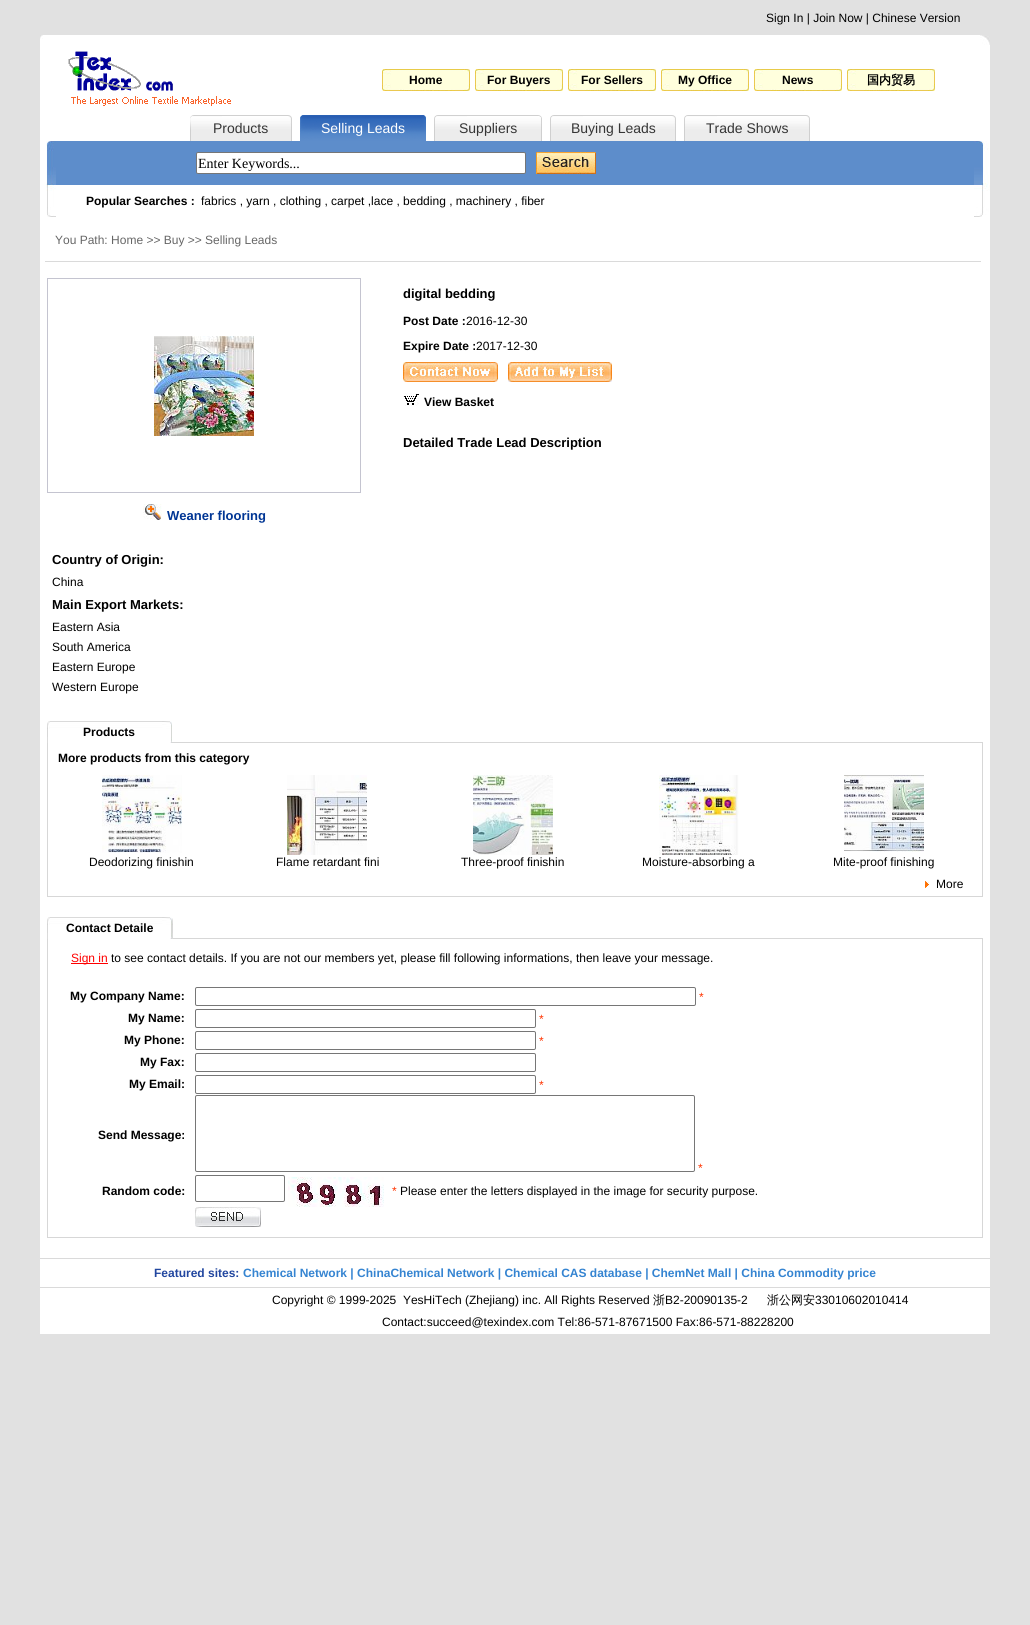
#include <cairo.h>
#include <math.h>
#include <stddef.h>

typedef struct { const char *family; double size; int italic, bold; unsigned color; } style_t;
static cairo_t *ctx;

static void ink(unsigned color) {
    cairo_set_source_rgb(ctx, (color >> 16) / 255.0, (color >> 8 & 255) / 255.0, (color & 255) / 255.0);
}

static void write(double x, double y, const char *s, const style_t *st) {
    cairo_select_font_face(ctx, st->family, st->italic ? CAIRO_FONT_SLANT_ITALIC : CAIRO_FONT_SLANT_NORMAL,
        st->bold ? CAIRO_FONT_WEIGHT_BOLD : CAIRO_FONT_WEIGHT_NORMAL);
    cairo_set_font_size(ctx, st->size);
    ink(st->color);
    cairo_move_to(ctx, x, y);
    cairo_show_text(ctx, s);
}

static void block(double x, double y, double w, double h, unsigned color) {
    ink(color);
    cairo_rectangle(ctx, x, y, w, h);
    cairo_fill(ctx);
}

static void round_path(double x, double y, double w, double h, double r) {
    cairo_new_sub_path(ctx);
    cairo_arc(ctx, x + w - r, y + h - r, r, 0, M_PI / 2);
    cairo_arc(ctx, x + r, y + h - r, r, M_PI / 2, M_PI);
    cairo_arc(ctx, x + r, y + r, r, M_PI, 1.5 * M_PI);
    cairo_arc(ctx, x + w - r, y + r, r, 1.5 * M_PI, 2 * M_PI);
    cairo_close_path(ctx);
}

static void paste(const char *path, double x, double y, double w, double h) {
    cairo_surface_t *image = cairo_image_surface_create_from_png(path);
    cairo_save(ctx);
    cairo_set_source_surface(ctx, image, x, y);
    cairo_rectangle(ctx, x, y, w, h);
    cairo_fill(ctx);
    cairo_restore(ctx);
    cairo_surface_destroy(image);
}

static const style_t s1 = {"Liberation Sans", 12, 0, 0, 0x000000};
static const style_t s2 = {"Liberation Sans", 12, 0, 1, 0x000000};
static const style_t s3 = {"WenQuanYi Zen Hei", 12, 0, 1, 0x000000};
static const style_t s4 = {"Liberation Sans", 14, 0, 0, 0x353535};
static const style_t s5 = {"Liberation Sans", 14, 0, 0, 0xffffff};
static const style_t s6 = {"Liberation Serif", 14, 0, 0, 0x000000};
static const style_t s7 = {"Liberation Sans", 12, 0, 0, 0x666666};
static const style_t s8 = {"Liberation Sans", 13, 0, 1, 0x000000};
static const style_t s9 = {"Liberation Sans", 13, 0, 1, 0x003594};
static const style_t s10 = {"Liberation Sans", 12, 0, 0, 0xff0000};
static const style_t s11 = {"Liberation Sans", 12, 0, 0, 0xff3300};
static const style_t s12 = {"Liberation Sans", 12, 0, 1, 0x21469f};
static const style_t s13 = {"Liberation Sans", 12, 0, 1, 0x3584d1};
static const style_t s14 = {"WenQuanYi Zen Hei Medium", 12, 0, 0, 0x000000};

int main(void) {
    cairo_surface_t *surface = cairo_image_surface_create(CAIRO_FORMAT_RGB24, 1030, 1625);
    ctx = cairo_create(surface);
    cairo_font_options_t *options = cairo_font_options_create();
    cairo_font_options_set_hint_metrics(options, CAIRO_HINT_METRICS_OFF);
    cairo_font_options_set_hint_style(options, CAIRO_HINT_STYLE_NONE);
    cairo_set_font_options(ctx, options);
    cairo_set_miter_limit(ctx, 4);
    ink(0xe1e1e1);
    cairo_paint(ctx);
    write(766, 22, "Sign In | Join Now | Chinese Version", &s1);
    block(40, 35, 940, 10, 0xffffff);
    paste("pic1.png", 40, 35, 3, 4);
    paste("pic2.png", 980, 35, 10, 10);
    block(40, 45, 950, 140, 0xffffff);
    paste("pic3.png", 68, 51, 163, 55);
    paste("pic4.png", 382, 69, 88, 22);
    write(409, 84, "Home", &s2);
    paste("pic4.png", 475, 69, 88, 22);
    write(487, 84, "For Buyers", &s2);
    paste("pic4.png", 568, 69, 88, 22);
    write(581, 84, "For Sellers", &s2);
    paste("pic4.png", 661, 69, 88, 22);
    write(678, 84, "My Office", &s2);
    paste("pic4.png", 754, 69, 88, 22);
    write(782, 84, "News", &s2);
    paste("pic4.png", 847, 69, 88, 22);
    write(867, 84, "国内贸易", &s3);
    paste("pic5.png", 190, 115, 102, 26);
    write(213, 133, "Products", &s4);
    paste("pic6.png", 300, 115, 126, 26);
    write(321, 133, "Selling Leads", &s5);
    paste("pic7.png", 434, 115, 108, 26);
    write(459, 133, "Suppliers", &s4);
    paste("pic8.png", 550, 115, 126, 26);
    write(571, 133, "Buying Leads", &s4);
    paste("pic8.png", 684, 115, 126, 26);
    write(706, 133, "Trade Shows", &s4);
    paste("pic9.png", 46, 141, 10, 44);
    block(56, 141, 918, 44, 0x5d8dcb);
    ink(0xffffff);
    round_path(196.5, 152.5, 329, 21, 1.5);
    cairo_fill_preserve(ctx);
    ink(0x767676);
    cairo_set_line_width(ctx, 1);
    cairo_stroke(ctx);
    write(198, 168, "Enter Keywords...", &s6);
    paste("pic10.png", 536, 152, 60, 22);
    paste("pic11.png", 974, 141, 15, 44);
    block(40, 185, 934, 32, 0xffffff);
    paste("pic12.png", 46, 185, 10, 32);
    write(86, 205, "Popular Searches :", &s2);
    write(201, 205, "fabrics , yarn , clothing , carpet ,lace , bedding , machinery , fiber", &s1);
    paste("pic13.png", 974, 185, 16, 32);
    block(40, 217, 950, 1041, 0xffffff);
    write(55, 244, "You Path: Home >> Buy >> Selling Leads", &s7);
    block(45, 261, 936, 1, 0xdadada);
    write(403, 298, "digital bedding", &s8);
    write(403, 325, "Post Date :", &s2);
    write(466, 325, "2016-12-30", &s1);
    write(403, 350, "Expire Date :", &s2);
    write(476, 350, "2017-12-30", &s1);
    paste("pic14.png", 403, 362, 95, 20);
    paste("pic15.png", 508, 362, 104, 20);
    paste("pic16.png", 403, 393, 16, 13);
    write(424, 406, "View Basket", &s2);
    write(403, 447, "Detailed Trade Lead Description", &s8);
    cairo_rectangle(ctx, 47.5, 278.5, 313, 214);
    ink(0xc4c4d0);
    cairo_stroke(ctx);
    paste("pic17.png", 154, 336, 100, 100);
    paste("pic18.png", 143, 504, 19, 16);
    write(167, 520, "Weaner flooring", &s9);
    write(52, 564, "Country of Origin:", &s8);
    write(52, 586, "China", &s1);
    write(52, 609, "Main Export Markets:", &s8);
    write(52, 631, "Eastern Asia", &s1);
    write(52, 651, "South America", &s1);
    write(52, 671, "Eastern Europe", &s1);
    write(52, 691, "Western Europe", &s1);
    paste("pic19.png", 47, 721, 125, 22);
    write(83, 736, "Products", &s2);
    block(172, 742, 811, 1, 0xd7d7d7);
    block(982, 743, 1, 154, 0xd7d7d7);
    block(47, 896, 936, 1, 0xd7d7d7);
    block(47, 743, 1, 154, 0xd7d7d7);
    write(58, 762, "More products from this category", &s2);
    paste("pic20.png", 102, 775, 80, 78);
    write(89, 866, "Deodorizing finishin", &s1);
    paste("pic21.png", 287, 775, 80, 80);
    write(276, 866, "Flame retardant fini", &s1);
    paste("pic22.png", 473, 775, 80, 80);
    write(461, 866, "Three-proof finishin", &s1);
    paste("pic23.png", 659, 775, 80, 80);
    write(642, 866, "Moisture-absorbing a", &s1);
    paste("pic24.png", 844, 775, 80, 77);
    write(833, 866, "Mite-proof finishing", &s1);
    paste("pic25.png", 925, 881, 4, 7);
    write(936, 888, "More", &s1);
    paste("pic26.png", 47, 917, 126, 22);
    write(66, 932, "Contact Detaile", &s2);
    block(173, 938, 810, 1, 0xd7d7d7);
    block(982, 939, 1, 299, 0xd7d7d7);
    block(47, 1237, 936, 1, 0xd7d7d7);
    block(47, 939, 1, 299, 0xd7d7d7);
    block(71, 963, 37, 1, 0xff0000);
    write(71, 962, "Sign in", &s10);
    write(111, 962, "to see contact details. If you are not our members yet, please fill following informations, then leave your message.", &s1);
    write(70, 1000, "My Company Name:", &s2);
    round_path(195.5, 987.5, 500, 18, 1.5);
    ink(0x767676);
    cairo_stroke(ctx);
    write(699, 1001, "*", &s11);
    write(128, 1022, "My Name:", &s2);
    round_path(195.5, 1009.5, 340, 18, 1.5);
    ink(0x767676);
    cairo_stroke(ctx);
    write(539, 1023, "*", &s11);
    write(124, 1044, "My Phone:", &s2);
    round_path(195.5, 1031.5, 340, 18, 1.5);
    ink(0x767676);
    cairo_stroke(ctx);
    write(539, 1045, "*", &s11);
    write(140, 1066, "My Fax:", &s2);
    round_path(195.5, 1053.5, 340, 18, 1.5);
    ink(0x767676);
    cairo_stroke(ctx);
    write(129, 1088, "My Email:", &s2);
    round_path(195.5, 1075.5, 340, 18, 1.5);
    ink(0x767676);
    cairo_stroke(ctx);
    write(539, 1089, "*", &s11);
    write(98, 1139, "Send Message:", &s2);
    round_path(195.5, 1095.5, 499, 76, 1.5);
    ink(0x767676);
    cairo_stroke(ctx);
    write(698, 1172, "*", &s11);
    write(102, 1195, "Random code:", &s2);
    round_path(195.5, 1175.5, 89, 26, 1.5);
    ink(0x767676);
    cairo_stroke(ctx);
    paste("pic27.png", 288, 1177, 96, 30);
    write(392, 1195, "*", &s11);
    write(400, 1195, "Please enter the letters displayed in the image for security purpose.", &s1);
    paste("pic28.png", 195, 1207, 66, 20);
    block(40, 1259, 950, 28, 0xffffff);
    block(40, 1258, 950, 1, 0xdadada);
    block(40, 1287, 950, 1, 0xdadada);
    write(154, 1277, "Featured sites:", &s12);
    write(243, 1277, "Chemical Network | ChinaChemical Network | Chemical CAS database | ChemNet Mall | China Commodity price", &s13);
    block(40, 1288, 950, 46, 0xffffff);
    write(272, 1304, "Copyright © 1999-2025  YesHiTech (Zhejiang) inc. All Rights Reserved", &s1);
    write(653, 1304, "浙", &s14);
    write(665, 1304, "B2-20090135-2", &s1);
    write(767, 1304, "浙公网安", &s14);
    write(815, 1304, "33010602010414", &s1);
    write(382, 1326, "Contact:succeed@texindex.com Tel:86-571-87671500 Fax:86-571-88228200", &s1);
    cairo_surface_write_to_png(surface, "screenshot.png");
    cairo_font_options_destroy(options);
    cairo_destroy(ctx);
    cairo_surface_destroy(surface);
    return 0;
}
